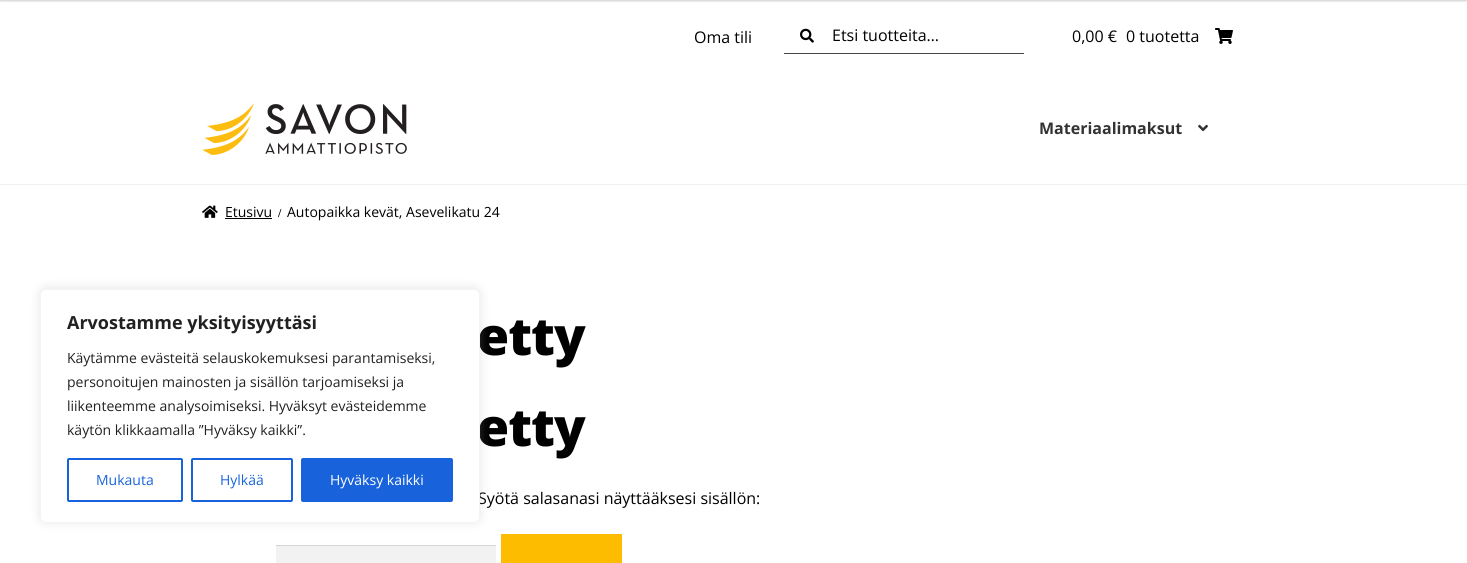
#include <cairo.h>
#include <math.h>
#include <stddef.h>

typedef struct { const char *family; double size; int italic, bold; unsigned color; } style_t;
static cairo_t *ctx;

static void ink(unsigned color) {
    cairo_set_source_rgb(ctx, (color >> 16) / 255.0, (color >> 8 & 255) / 255.0, (color & 255) / 255.0);
}

static void write(double x, double y, const char *s, const style_t *st) {
    cairo_select_font_face(ctx, st->family, st->italic ? CAIRO_FONT_SLANT_ITALIC : CAIRO_FONT_SLANT_NORMAL,
        st->bold ? CAIRO_FONT_WEIGHT_BOLD : CAIRO_FONT_WEIGHT_NORMAL);
    cairo_set_font_size(ctx, st->size);
    ink(st->color);
    cairo_move_to(ctx, x, y);
    cairo_show_text(ctx, s);
}

static void write_spaced(double x, double y, const char *s, double letter, double word) {
    cairo_move_to(ctx, x, y);
    while (*s) {
        char ch[5] = {0};
        int n = 0;
        do ch[n++] = *s++; while ((*s & 0xC0) == 0x80);
        cairo_show_text(ctx, ch);
        cairo_rel_move_to(ctx, letter + word * (*ch == ' '), 0);
    }
}

static void block(double x, double y, double w, double h, unsigned color) {
    ink(color);
    cairo_rectangle(ctx, x, y, w, h);
    cairo_fill(ctx);
}

static void round_path(double x, double y, double w, double h, double r) {
    cairo_new_sub_path(ctx);
    cairo_arc(ctx, x + w - r, y + h - r, r, 0, M_PI / 2);
    cairo_arc(ctx, x + r, y + h - r, r, M_PI / 2, M_PI);
    cairo_arc(ctx, x + r, y + r, r, M_PI, 1.5 * M_PI);
    cairo_arc(ctx, x + w - r, y + r, r, 1.5 * M_PI, 2 * M_PI);
    cairo_close_path(ctx);
}

static void blur_box(double x, double y, double w, double h, double r, double blur, double alpha) {
    cairo_push_group_with_content(ctx, CAIRO_CONTENT_ALPHA);
    cairo_set_operator(ctx, CAIRO_OPERATOR_SOURCE);
    for (int i = 15; i >= -15 && fmin(w, h) + blur * i / 3 > 0; i -= 2) {
        double e = blur * i / 6;
        cairo_set_source_rgba(ctx, 0, 0, 0, alpha * erfc((i - 1) / 8.5) / 2);
        round_path(x - e, y - e, w + 2 * e, h + 2 * e, fmax(0, fmin(r + e + blur * .6, fmin(w, h) / 2 + e)));
        cairo_fill(ctx);
    }
    cairo_pattern_t *soft = cairo_pop_group(ctx);
    cairo_mask(ctx, soft);
    cairo_pattern_destroy(soft);
}

static void paste(const char *path, double x, double y, double w, double h) {
    cairo_surface_t *image = cairo_image_surface_create_from_png(path);
    cairo_save(ctx);
    cairo_set_source_surface(ctx, image, x, y);
    cairo_rectangle(ctx, x, y, w, h);
    cairo_fill(ctx);
    cairo_restore(ctx);
    cairo_surface_destroy(image);
}

static const style_t s1 = {"Open Sans", 16, 0, 0, 0x000000};
static const style_t s2 = {"Open Sans", 16, 0, 1, 0x333333};
static const style_t s3 = {"Open Sans", 14, 0, 0, 0x000000};
static const style_t s4 = {"Liberation Serif", 12, 0, 1, 0x000000};
static const style_t s5 = {"Open Sans", 18, 0, 1, 0x212121};
static const style_t s6 = {"Open Sans", 14, 0, 0, 0x212121};
static const style_t s7 = {"Open Sans", 14, 0, 0, 0x1863dc};
static const style_t s8 = {"Open Sans", 14, 0, 0, 0xffffff};

int main(void) {
    cairo_surface_t *surface = cairo_image_surface_create(CAIRO_FORMAT_RGB24, 1467, 563);
    ctx = cairo_create(surface);
    cairo_font_options_t *options = cairo_font_options_create();
    cairo_font_options_set_hint_metrics(options, CAIRO_HINT_METRICS_OFF);
    cairo_font_options_set_hint_style(options, CAIRO_HINT_STYLE_NONE);
    cairo_set_font_options(ctx, options);
    cairo_set_miter_limit(ctx, 4);
    ink(0xffffff);
    cairo_paint(ctx);
    ink(0x000000);
    blur_box(0, -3, 1467, 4, 0, 1, 0.2);
    write(694, 43, "Oma tili", &s1);
    paste("pic1.png", 800, 28, 14, 15);
    block(784, 53, 240, 1, 0x43454b);
    write(832, 41, "Etsi tuotteita…", &s1);
    write(1072, 42, "0,00 €", &s1);
    write(1126, 42, "0 tuotetta", &s1);
    paste("pic2.png", 1215, 28, 18, 16);
    block(0, 184, 1467, 1, 0xf0f0f0);
    paste("pic3.png", 202, 103, 205, 52);
    write(1039, 134, "Materiaalimaksut", &s2);
    paste("pic4.png", 1198, 124, 10, 8);
    paste("pic5.png", 202, 205, 16, 13);
    write(225, 217, "Etusivu", &s3);
    block(225, 218, 47, 1, 0x000000);
    write(278, 217, "/", &s4);
    write(287, 217, "Autopaikka kevät, Asevelikatu 24", &s3);
    cairo_select_font_face(ctx, "Open Sans ExtraBold", CAIRO_FONT_SLANT_NORMAL, CAIRO_FONT_WEIGHT_NORMAL);
    cairo_set_font_size(ctx, 52);
    write_spaced(477, 355, "etty", -1, 0);
    write_spaced(477, 446, "etty", -1, 0);
    write(478, 504, "Syötä salasanasi näyttääksesi sisällön:", &s1);
    block(276, 546, 220, 17, 0xf2f2f2);
    block(276, 545, 220, 1, 0xd4d4d4);
    block(501, 534, 121, 29, 0xfdbc00);
    ink(0xacabab);
    blur_box(40, 288, 440, 234, 6, 5, 0.3);
    ink(0xffffff);
    round_path(40.5, 289.5, 439, 233, 5.5);
    cairo_fill_preserve(ctx);
    ink(0xf4f4f4);
    cairo_set_line_width(ctx, 1);
    cairo_stroke(ctx);
    write(67, 329, "Arvostamme yksityisyyttäsi", &s5);
    write(67, 363, "Käytämme evästeitä selauskokemuksesi parantamiseksi,", &s6);
    write(67, 387, "personoitujen mainosten ja sisällön tarjoamiseksi ja", &s6);
    write(67, 411, "liikenteemme analysoimiseksi. Hyväksyt evästeidemme", &s6);
    write(67, 435, "käytön klikkaamalla ”Hyväksy kaikki”.", &s6);
    round_path(68, 459, 114, 42, 1);
    ink(0x1863dc);
    cairo_set_line_width(ctx, 2);
    cairo_stroke(ctx);
    write(96, 485, "Mukauta", &s7);
    round_path(192, 459, 100, 42, 1);
    cairo_stroke(ctx);
    write(220, 485, "Hylkää", &s7);
    round_path(302, 459, 150, 42, 1);
    cairo_fill_preserve(ctx);
    cairo_stroke(ctx);
    write(330, 485, "Hyväksy kaikki", &s8);
    cairo_surface_write_to_png(surface, "screenshot.png");
    cairo_font_options_destroy(options);
    cairo_destroy(ctx);
    cairo_surface_destroy(surface);
    return 0;
}
